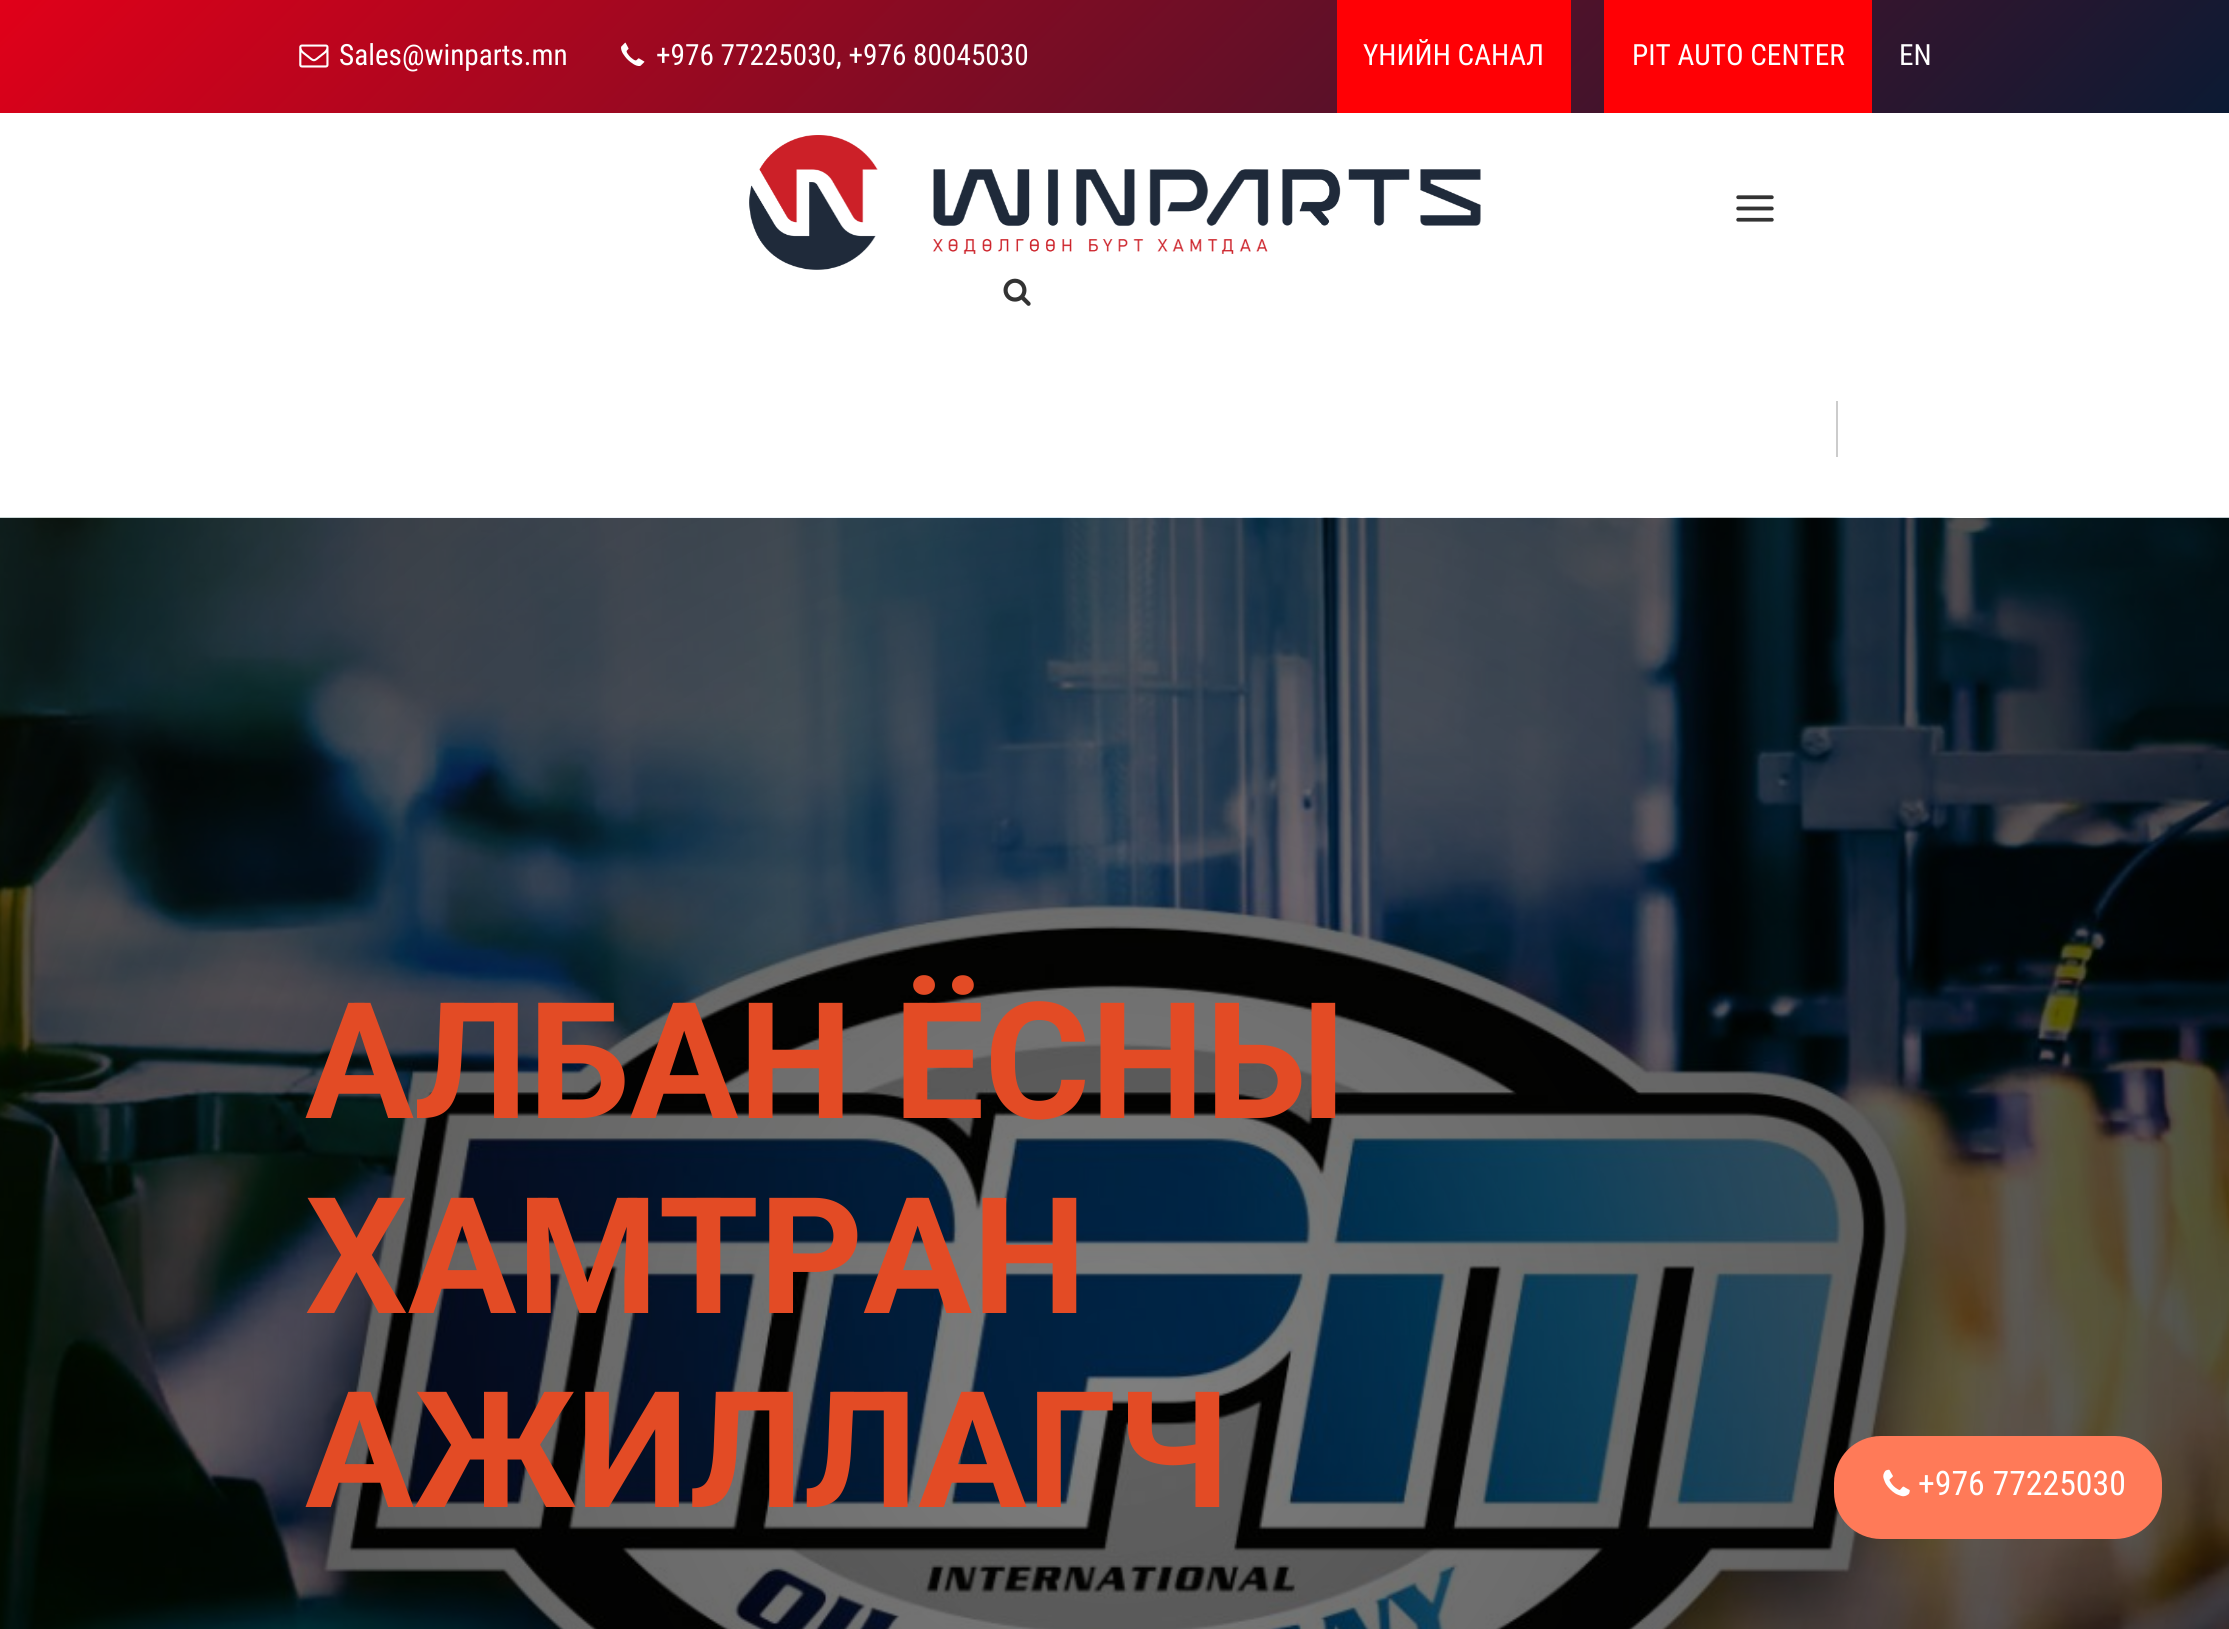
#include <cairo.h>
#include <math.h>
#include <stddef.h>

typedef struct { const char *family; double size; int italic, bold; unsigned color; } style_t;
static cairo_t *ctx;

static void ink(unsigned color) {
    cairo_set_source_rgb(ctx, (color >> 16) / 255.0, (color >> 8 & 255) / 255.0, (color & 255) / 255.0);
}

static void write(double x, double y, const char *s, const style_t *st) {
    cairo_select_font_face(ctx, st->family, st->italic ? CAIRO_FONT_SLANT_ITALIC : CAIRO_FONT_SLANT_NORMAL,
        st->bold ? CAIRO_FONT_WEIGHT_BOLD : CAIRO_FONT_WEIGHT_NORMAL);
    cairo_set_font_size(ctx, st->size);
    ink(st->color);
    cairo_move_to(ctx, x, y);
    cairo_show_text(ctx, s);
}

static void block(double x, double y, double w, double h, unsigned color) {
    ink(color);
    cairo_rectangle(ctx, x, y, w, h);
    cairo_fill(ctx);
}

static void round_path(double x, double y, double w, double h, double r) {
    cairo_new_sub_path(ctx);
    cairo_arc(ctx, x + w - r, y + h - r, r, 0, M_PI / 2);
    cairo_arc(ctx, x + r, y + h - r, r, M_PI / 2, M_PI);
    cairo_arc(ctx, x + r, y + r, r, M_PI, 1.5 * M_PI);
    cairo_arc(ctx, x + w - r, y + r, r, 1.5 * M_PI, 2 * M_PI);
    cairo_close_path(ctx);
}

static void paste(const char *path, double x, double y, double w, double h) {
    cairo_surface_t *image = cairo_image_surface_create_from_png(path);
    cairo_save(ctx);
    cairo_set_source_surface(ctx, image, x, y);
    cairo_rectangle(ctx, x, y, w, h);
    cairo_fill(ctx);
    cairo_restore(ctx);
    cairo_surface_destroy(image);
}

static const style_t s1 = {"Roboto Condensed", 29.25, 0, 0, 0xffffff};
static const style_t s2 = {"Roboto", 162, 0, 1, 0xe34b25};
static const style_t s3 = {"Roboto Condensed", 33.75, 0, 0, 0xffffff};

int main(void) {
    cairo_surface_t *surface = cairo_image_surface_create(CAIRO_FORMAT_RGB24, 2229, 1629);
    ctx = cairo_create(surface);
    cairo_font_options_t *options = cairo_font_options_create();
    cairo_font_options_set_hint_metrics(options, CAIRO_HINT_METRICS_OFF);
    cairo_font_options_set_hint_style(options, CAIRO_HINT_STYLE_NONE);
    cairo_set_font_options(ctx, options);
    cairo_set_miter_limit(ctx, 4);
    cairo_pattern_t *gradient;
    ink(0xffffff);
    cairo_paint(ctx);
    gradient = cairo_pattern_create_linear(529, -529, 1700, 642);
    cairo_pattern_add_color_stop_rgba(gradient, 0, 0.882, 0, 0.098, 1);
    cairo_pattern_add_color_stop_rgba(gradient, 0.4, 0.529, 0.043, 0.137, 1);
    cairo_pattern_add_color_stop_rgba(gradient, 1, 0.043, 0.102, 0.2, 1);
    cairo_set_source(ctx, gradient);
    cairo_pattern_destroy(gradient);
    cairo_rectangle(ctx, 0, 0, 2229, 113);
    cairo_fill(ctx);
    paste("pic1.png", 299, 44, 30, 24);
    write(339, 65, "Sales@winparts.mn", &s1);
    paste("pic2.png", 621, 42, 24, 24);
    write(656, 65, "+976 77225030, +976 80045030", &s1);
    block(1337, 0, 234, 113, 0xff0005);
    write(1363, 65, "ҮНИЙН САНАЛ", &s1);
    block(1604, 0, 268, 113, 0xff0005);
    write(1632, 65, "PIT AUTO CENTER", &s1);
    write(1899, 65, "EN", &s1);
    paste("pic3.png", 749, 135, 732, 135);
    paste("pic4.png", 1736, 195, 38, 27);
    paste("pic5.png", 1003, 278, 28, 28);
    block(1836, 401, 2, 56, 0xcccccc);
    paste("pic6.png", 0, 517, 2229, 1112);
    write(305, 1118, "АЛБАН ЁСНЫ", &s2);
    write(305, 1313, "ХАМТРАН", &s2);
    write(305, 1507, "АЖИЛЛАГЧ", &s2);
    ink(0xff7a58);
    round_path(1835, 1437, 326, 101, 46);
    cairo_fill_preserve(ctx);
    ink(0xff7a59);
    cairo_stroke(ctx);
    paste("pic7.png", 1883, 1469, 27, 28);
    write(1918, 1495, "+976 77225030", &s3);
    cairo_surface_write_to_png(surface, "screenshot.png");
    cairo_font_options_destroy(options);
    cairo_destroy(ctx);
    cairo_surface_destroy(surface);
    return 0;
}
